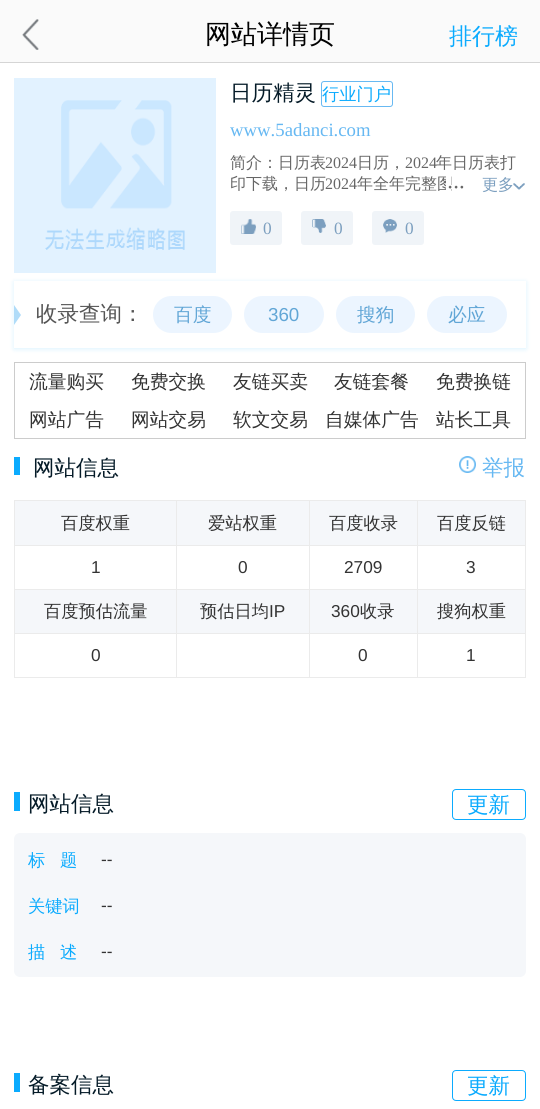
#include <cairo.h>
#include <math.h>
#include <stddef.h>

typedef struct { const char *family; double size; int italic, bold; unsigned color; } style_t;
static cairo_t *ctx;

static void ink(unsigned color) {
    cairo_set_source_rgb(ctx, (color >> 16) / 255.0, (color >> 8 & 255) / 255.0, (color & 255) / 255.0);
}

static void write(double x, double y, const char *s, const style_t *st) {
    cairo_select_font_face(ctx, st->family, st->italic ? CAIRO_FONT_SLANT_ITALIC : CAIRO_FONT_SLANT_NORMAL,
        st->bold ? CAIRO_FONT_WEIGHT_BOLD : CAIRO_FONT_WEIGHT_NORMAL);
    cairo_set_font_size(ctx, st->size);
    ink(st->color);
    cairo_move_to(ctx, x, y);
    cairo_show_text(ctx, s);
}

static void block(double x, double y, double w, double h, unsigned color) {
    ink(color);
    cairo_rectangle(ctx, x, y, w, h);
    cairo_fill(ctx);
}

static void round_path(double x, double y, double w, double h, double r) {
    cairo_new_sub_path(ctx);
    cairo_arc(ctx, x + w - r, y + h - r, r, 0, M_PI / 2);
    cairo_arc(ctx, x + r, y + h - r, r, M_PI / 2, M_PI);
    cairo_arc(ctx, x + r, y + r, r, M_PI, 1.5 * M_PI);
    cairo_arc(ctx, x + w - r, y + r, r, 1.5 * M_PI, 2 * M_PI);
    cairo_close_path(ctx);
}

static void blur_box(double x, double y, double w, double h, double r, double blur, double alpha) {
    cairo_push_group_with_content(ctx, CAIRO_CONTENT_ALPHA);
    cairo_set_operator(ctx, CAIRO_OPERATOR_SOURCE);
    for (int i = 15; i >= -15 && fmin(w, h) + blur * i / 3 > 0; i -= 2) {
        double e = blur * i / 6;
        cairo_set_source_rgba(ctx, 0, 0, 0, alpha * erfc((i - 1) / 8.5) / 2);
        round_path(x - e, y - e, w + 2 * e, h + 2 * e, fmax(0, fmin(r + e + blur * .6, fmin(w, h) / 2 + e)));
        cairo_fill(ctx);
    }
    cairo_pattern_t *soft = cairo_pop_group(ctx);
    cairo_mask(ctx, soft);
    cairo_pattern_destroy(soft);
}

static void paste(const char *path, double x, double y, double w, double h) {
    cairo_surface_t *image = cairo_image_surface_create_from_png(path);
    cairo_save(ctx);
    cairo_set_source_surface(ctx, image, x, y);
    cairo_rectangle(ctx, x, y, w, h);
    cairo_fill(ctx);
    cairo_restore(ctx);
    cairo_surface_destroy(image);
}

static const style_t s1 = {"WenQuanYi Zen Hei Medium", 26, 0, 0, 0x000000};
static const style_t s2 = {"WenQuanYi Zen Hei Medium", 23, 0, 0, 0x0babfe};
static const style_t s3 = {"WenQuanYi Zen Hei Medium", 21.5, 0, 0, 0x051b28};
static const style_t s4 = {"WenQuanYi Zen Hei Medium", 17.25, 0, 0, 0x0babfe};
static const style_t s5 = {"Liberation Serif", 18.75, 0, 0, 0x66b8f2};
static const style_t s6 = {"WenQuanYi Zen Hei Medium", 16, 0, 0, 0x666666};
static const style_t s7 = {"Liberation Serif", 16, 0, 0, 0x666666};
static const style_t s8 = {"WenQuanYi Zen Hei Medium", 16, 0, 0, 0x7c9fbf};
static const style_t s9 = {"Liberation Serif", 17.25, 0, 0, 0x7c9fbf};
static const style_t s10 = {"WenQuanYi Zen Hei Medium", 21.5, 0, 0, 0x555555};
static const style_t s11 = {"WenQuanYi Zen Hei Medium", 18.75, 0, 0, 0x61a6d6};
static const style_t s12 = {"Liberation Sans", 18.75, 0, 0, 0x61a6d6};
static const style_t s13 = {"WenQuanYi Zen Hei Medium", 18.75, 0, 0, 0x333333};
static const style_t s14 = {"WenQuanYi Zen Hei Medium", 21.5, 0, 0, 0x66b8f2};
static const style_t s15 = {"WenQuanYi Zen Hei Medium", 17.25, 0, 0, 0x333333};
static const style_t s16 = {"Liberation Sans", 17.25, 0, 0, 0x333333};
static const style_t s17 = {"WenQuanYi Zen Hei Medium", 21.5, 0, 0, 0x0babfe};

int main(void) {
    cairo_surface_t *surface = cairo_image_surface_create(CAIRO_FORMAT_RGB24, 540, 1109);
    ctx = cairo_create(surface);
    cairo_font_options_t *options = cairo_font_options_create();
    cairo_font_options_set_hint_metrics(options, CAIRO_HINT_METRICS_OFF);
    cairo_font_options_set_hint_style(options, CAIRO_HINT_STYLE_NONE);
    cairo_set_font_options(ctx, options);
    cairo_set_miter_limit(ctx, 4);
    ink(0xffffff);
    cairo_paint(ctx);
    block(0, 0, 540, 62, 0xfafafa);
    block(0, 62, 540, 1, 0xd5d5d5);
    paste("pic1.png", 22, 19, 17, 31);
    write(205, 43, "网站详情页", &s1);
    write(449, 44, "排行榜", &s2);
    paste("pic2.png", 14, 78, 202, 195);
    write(230, 100, "日历精灵", &s3);
    round_path(321.5, 81.5, 71, 25, 2.5);
    ink(0x68b9f2);
    cairo_set_line_width(ctx, 1);
    cairo_stroke(ctx);
    write(322, 100, "行业门户", &s4);
    write(230, 136, "www.5adanci.com", &s5);
    write(230, 168, "简介：日历表", &s6);
    write(325, 168, "2024", &s7);
    write(357, 168, "日历，", &s6);
    write(405, 168, "2024", &s7);
    write(436, 168, "年日历表打", &s6);
    write(230, 189, "印下载，日历", &s6);
    write(325, 189, "2024", &s7);
    write(357, 189, "年全年完整图", &s6);
    block(446, 176, 5, 15, 0xffffff);
    paste("pic3.png", 448, 185, 16, 4);
    write(482, 190, "更多", &s8);
    paste("pic4.png", 513, 183, 12, 7);
    ink(0xf0f4f8);
    round_path(230, 211, 52, 34, 3);
    cairo_fill(ctx);
    paste("pic5.png", 241, 219, 15, 15);
    write(263, 234, "0", &s9);
    ink(0xf0f4f8);
    round_path(301, 211, 52, 34, 3);
    cairo_fill(ctx);
    paste("pic6.png", 312, 219, 14, 14);
    write(334, 234, "0", &s9);
    ink(0xf0f4f8);
    round_path(372, 211, 52, 34, 3);
    cairo_fill(ctx);
    paste("pic7.png", 383, 219, 14, 14);
    write(405, 234, "0", &s9);
    cairo_save(ctx);
    cairo_set_fill_rule(ctx, CAIRO_FILL_RULE_EVEN_ODD);
    cairo_new_path(ctx);
    cairo_move_to(ctx, 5, 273);
    cairo_line_to(ctx, 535, 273);
    cairo_line_to(ctx, 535, 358);
    cairo_line_to(ctx, 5, 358);
    cairo_close_path(ctx);
    cairo_move_to(ctx, 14, 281);
    cairo_line_to(ctx, 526, 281);
    cairo_line_to(ctx, 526, 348);
    cairo_line_to(ctx, 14, 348);
    cairo_close_path(ctx);
    cairo_clip(ctx);
    ink(0x0babfe);
    blur_box(14, 282, 512, 67, 0, 2.5, 0.15);
    cairo_restore(ctx);
    ink(0xb0dcf9);
    cairo_new_path(ctx);
    cairo_move_to(ctx, 14, 325);
    cairo_line_to(ctx, 14, 305);
    cairo_line_to(ctx, 21, 315);
    cairo_close_path(ctx);
    cairo_fill(ctx);
    write(36, 321, "收录查询：", &s10);
    ink(0xecf5ff);
    round_path(153, 296, 79, 37, 18.5);
    cairo_fill(ctx);
    write(174, 321, "百度", &s11);
    ink(0xecf5ff);
    round_path(244, 296, 80, 37, 18.5);
    cairo_fill(ctx);
    write(268, 321, "360", &s12);
    ink(0xecf5ff);
    round_path(336, 296, 79, 37, 18.5);
    cairo_fill(ctx);
    write(357, 321, "搜狗", &s11);
    ink(0xecf5ff);
    round_path(427, 296, 80, 37, 18.5);
    cairo_fill(ctx);
    write(448, 321, "必应", &s11);
    cairo_rectangle(ctx, 14.5, 362.5, 511, 76);
    ink(0xcccccc);
    cairo_stroke(ctx);
    write(29, 388, "流量购买", &s13);
    write(131, 388, "免费交换", &s13);
    write(233, 388, "友链买卖", &s13);
    write(334, 388, "友链套餐", &s13);
    write(436, 388, "免费换链", &s13);
    write(29, 426, "网站广告", &s13);
    write(131, 426, "网站交易", &s13);
    write(233, 426, "软文交易", &s13);
    write(325, 426, "自媒体广告", &s13);
    write(436, 426, "站长工具", &s13);
    block(14, 457, 6, 18, 0x0babfe);
    write(33, 475, "网站信息", &s3);
    paste("pic8.png", 459, 456, 17, 17);
    write(482, 475, "举报", &s14);
    block(15, 501, 510, 44, 0xf5f7fa);
    block(417, 500, 109, 1, 0xebebeb);
    block(417, 545, 109, 1, 0xebebeb);
    block(417, 589, 109, 1, 0xebebeb);
    block(15, 590, 510, 43, 0xf5f7fa);
    block(417, 633, 109, 1, 0xebebeb);
    block(525, 633, 1, 45, 0xebebeb);
    block(417, 677, 109, 1, 0xebebeb);
    block(417, 633, 1, 45, 0xebebeb);
    block(309, 633, 109, 1, 0xebebeb);
    block(417, 589, 1, 45, 0xebebeb);
    block(309, 589, 109, 1, 0xebebeb);
    block(417, 545, 1, 45, 0xebebeb);
    block(309, 545, 109, 1, 0xebebeb);
    block(417, 500, 1, 46, 0xebebeb);
    block(309, 500, 109, 1, 0xebebeb);
    block(309, 677, 109, 1, 0xebebeb);
    block(309, 633, 1, 45, 0xebebeb);
    block(176, 633, 134, 1, 0xebebeb);
    block(309, 589, 1, 45, 0xebebeb);
    block(176, 589, 134, 1, 0xebebeb);
    block(309, 545, 1, 45, 0xebebeb);
    block(176, 545, 134, 1, 0xebebeb);
    block(309, 500, 1, 46, 0xebebeb);
    block(176, 500, 134, 1, 0xebebeb);
    block(176, 677, 134, 1, 0xebebeb);
    block(176, 633, 1, 45, 0xebebeb);
    block(14, 633, 163, 1, 0xebebeb);
    block(176, 589, 1, 45, 0xebebeb);
    block(14, 589, 163, 1, 0xebebeb);
    block(176, 545, 1, 45, 0xebebeb);
    block(14, 545, 163, 1, 0xebebeb);
    block(176, 500, 1, 46, 0xebebeb);
    block(14, 500, 163, 1, 0xebebeb);
    block(14, 677, 163, 1, 0xebebeb);
    block(14, 633, 1, 45, 0xebebeb);
    block(14, 589, 1, 45, 0xebebeb);
    block(14, 545, 1, 45, 0xebebeb);
    block(14, 500, 1, 46, 0xebebeb);
    write(61, 529, "百度权重", &s15);
    write(208, 529, "爱站权重", &s15);
    write(329, 529, "百度收录", &s15);
    block(525, 589, 1, 45, 0xebebeb);
    block(525, 545, 1, 45, 0xebebeb);
    block(525, 500, 1, 46, 0xebebeb);
    write(437, 529, "百度反链", &s15);
    write(91, 573, "1", &s16);
    write(238, 573, "0", &s16);
    write(344, 573, "2709", &s16);
    write(466, 573, "3", &s16);
    write(44, 617, "百度预估流量", &s15);
    write(200, 617, "预估日均", &s15);
    write(269, 617, "IP", &s16);
    write(331, 617, "360", &s16);
    write(360, 617, "收录", &s15);
    write(437, 617, "搜狗权重", &s15);
    write(91, 661, "0", &s16);
    write(358, 661, "0", &s16);
    write(466, 661, "1", &s16);
    block(14, 792, 6, 19, 0x0babfe);
    write(28, 811, "网站信息", &s3);
    round_path(452.5, 789.5, 73, 30, 3.5);
    ink(0x0babfe);
    cairo_stroke(ctx);
    write(467, 812, "更新", &s17);
    ink(0xf5f7fa);
    round_path(14, 833, 512, 144, 6);
    cairo_fill(ctx);
    write(28, 866, "标", &s4);
    write(60, 866, "题", &s4);
    write(101, 865, "--", &s16);
    write(28, 912, "关键词", &s4);
    write(101, 911, "--", &s16);
    write(28, 958, "描", &s4);
    write(60, 958, "述", &s4);
    write(101, 957, "--", &s16);
    block(14, 1073, 6, 19, 0x0babfe);
    write(28, 1092, "备案信息", &s3);
    round_path(452.5, 1070.5, 73, 30, 3.5);
    ink(0x0babfe);
    cairo_stroke(ctx);
    write(467, 1093, "更新", &s17);
    cairo_surface_write_to_png(surface, "screenshot.png");
    cairo_font_options_destroy(options);
    cairo_destroy(ctx);
    cairo_surface_destroy(surface);
    return 0;
}
